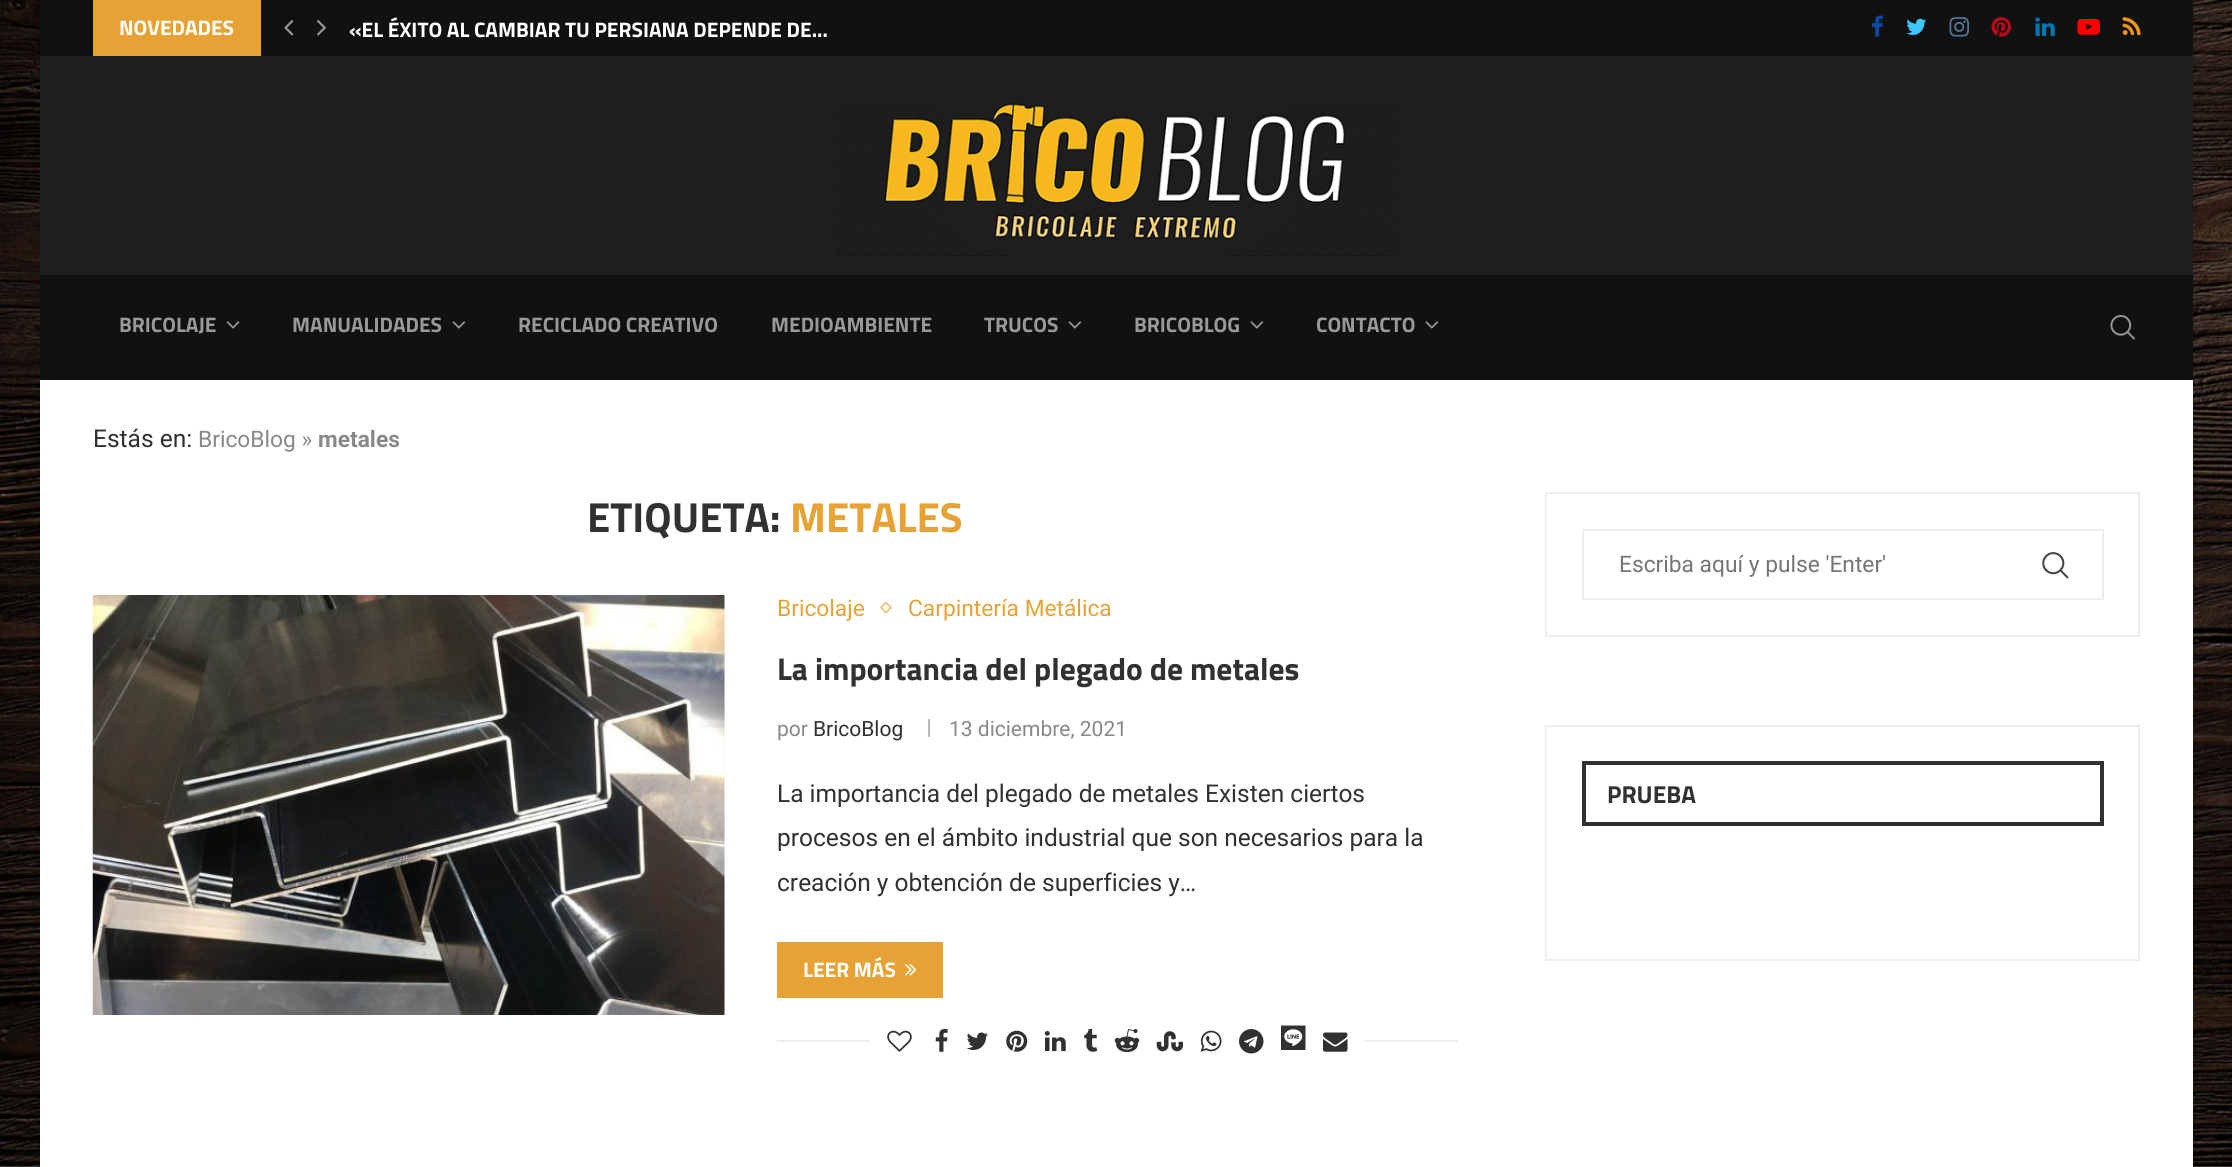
#include <cairo.h>
#include <math.h>
#include <stddef.h>

typedef struct { const char *family; double size; int italic, bold; unsigned color; } style_t;
static cairo_t *ctx;

static void ink(unsigned color) {
    cairo_set_source_rgb(ctx, (color >> 16) / 255.0, (color >> 8 & 255) / 255.0, (color & 255) / 255.0);
}

static void write(double x, double y, const char *s, const style_t *st) {
    cairo_select_font_face(ctx, st->family, st->italic ? CAIRO_FONT_SLANT_ITALIC : CAIRO_FONT_SLANT_NORMAL,
        st->bold ? CAIRO_FONT_WEIGHT_BOLD : CAIRO_FONT_WEIGHT_NORMAL);
    cairo_set_font_size(ctx, st->size);
    ink(st->color);
    cairo_move_to(ctx, x, y);
    cairo_show_text(ctx, s);
}

static void block(double x, double y, double w, double h, unsigned color) {
    ink(color);
    cairo_rectangle(ctx, x, y, w, h);
    cairo_fill(ctx);
}

static void round_path(double x, double y, double w, double h, double r) {
    cairo_new_sub_path(ctx);
    cairo_arc(ctx, x + w - r, y + h - r, r, 0, M_PI / 2);
    cairo_arc(ctx, x + r, y + h - r, r, M_PI / 2, M_PI);
    cairo_arc(ctx, x + r, y + r, r, M_PI, 1.5 * M_PI);
    cairo_arc(ctx, x + w - r, y + r, r, 1.5 * M_PI, 2 * M_PI);
    cairo_close_path(ctx);
}

static void blur_box(double x, double y, double w, double h, double r, double blur, double alpha) {
    cairo_push_group_with_content(ctx, CAIRO_CONTENT_ALPHA);
    cairo_set_operator(ctx, CAIRO_OPERATOR_SOURCE);
    for (int i = 15; i >= -15 && fmin(w, h) + blur * i / 3 > 0; i -= 2) {
        double e = blur * i / 6;
        cairo_set_source_rgba(ctx, 0, 0, 0, alpha * erfc((i - 1) / 8.5) / 2);
        round_path(x - e, y - e, w + 2 * e, h + 2 * e, fmax(0, fmin(r + e + blur * .6, fmin(w, h) / 2 + e)));
        cairo_fill(ctx);
    }
    cairo_pattern_t *soft = cairo_pop_group(ctx);
    cairo_mask(ctx, soft);
    cairo_pattern_destroy(soft);
}

static void paste(const char *path, double x, double y, double w, double h) {
    cairo_surface_t *image = cairo_image_surface_create_from_png(path);
    cairo_save(ctx);
    cairo_set_source_surface(ctx, image, x, y);
    cairo_rectangle(ctx, x, y, w, h);
    cairo_fill(ctx);
    cairo_restore(ctx);
    cairo_surface_destroy(image);
}

static const style_t s1 = {"Titillium Web", 21, 0, 1, 0xffffff};
static const style_t s2 = {"Titillium Web", 21, 0, 1, 0x999999};
static const style_t s3 = {"Roboto", 24.5, 0, 0, 0x313131};
static const style_t s4 = {"Roboto", 22.75, 0, 0, 0x888888};
static const style_t s5 = {"Roboto", 22.75, 0, 1, 0x888888};
static const style_t s6 = {"Titillium Web", 42, 0, 1, 0x313131};
static const style_t s7 = {"Titillium Web", 42, 0, 1, 0xe7a235};
static const style_t s8 = {"Roboto", 22.75, 0, 0, 0xe7a235};
static const style_t s9 = {"Titillium Web", 31.5, 0, 1, 0x313131};
static const style_t s10 = {"Roboto", 21, 0, 0, 0x888888};
static const style_t s11 = {"Roboto", 21, 0, 0, 0x313131};
static const style_t s12 = {"Roboto", 22.75, 0, 0, 0x757575};
static const style_t s13 = {"Titillium Web", 24.5, 0, 1, 0x313131};

int main(void) {
    cairo_surface_t *surface = cairo_image_surface_create(CAIRO_FORMAT_RGB24, 2232, 1167);
    ctx = cairo_create(surface);
    cairo_font_options_t *options = cairo_font_options_create();
    cairo_font_options_set_hint_metrics(options, CAIRO_HINT_METRICS_OFF);
    cairo_font_options_set_hint_style(options, CAIRO_HINT_STYLE_NONE);
    cairo_set_font_options(ctx, options);
    cairo_set_miter_limit(ctx, 4);
    ink(0xffffff);
    cairo_paint(ctx);
    paste("pic1.png", 0, 0, 2232, 1167);
    ink(0x000000);
    blur_box(40, 9, 2153, 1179, 0, 7, 0.2);
    block(40, 380, 2153, 787, 0xffffff);
    block(40, 0, 2153, 56, 0x111111);
    block(93, 0, 168, 56, 0xe7a235);
    write(119, 35, "NOVEDADES", &s1);
    paste("pic2.png", 284, 20, 10, 16);
    paste("pic3.png", 317, 20, 9, 16);
    write(349, 37, "«EL ÉXITO AL CAMBIAR TU PERSIANA DEPENDE DE...", &s1);
    paste("pic4.png", 1871, 15, 12, 22);
    paste("pic5.png", 1906, 18, 21, 17);
    paste("pic6.png", 1949, 17, 20, 20);
    paste("pic7.png", 1991, 17, 20, 20);
    paste("pic8.png", 2035, 17, 20, 19);
    paste("pic9.png", 2077, 18, 23, 17);
    paste("pic10.png", 2122, 17, 19, 18);
    block(40, 56, 2153, 219, 0x1e1e1e);
    paste("pic11.png", 836, 103, 561, 153);
    block(40, 275, 2153, 105, 0x111111);
    write(119, 332, "BRICOLAJE", &s2);
    paste("pic12.png", 226, 321, 14, 8);
    write(292, 332, "MANUALIDADES", &s2);
    paste("pic13.png", 452, 321, 14, 8);
    write(518, 332, "RECICLADO CREATIVO", &s2);
    write(771, 332, "MEDIOAMBIENTE", &s2);
    write(984, 332, "TRUCOS", &s2);
    paste("pic13.png", 1068, 321, 14, 8);
    write(1134, 332, "BRICOBLOG", &s2);
    paste("pic13.png", 1250, 321, 14, 8);
    write(1316, 332, "CONTACTO", &s2);
    paste("pic13.png", 1425, 321, 14, 8);
    paste("pic14.png", 2110, 315, 25, 25);
    write(93, 447, "Estás en:", &s3);
    write(198, 447, "BricoBlog »", &s4);
    write(318, 447, "metales", &s5);
    write(587, 532, "ETIQUETA:", &s6);
    write(790, 532, "METALES", &s7);
    block(724, 595, 1, 420, 0xf5f5f5);
    paste("pic15.png", 92, 595, 633, 420);
    write(777, 616, "Bricolaje", &s8);
    cairo_new_path(ctx);
    cairo_move_to(ctx, 886, 602.5);
    cairo_line_to(ctx, 891, 607.5);
    cairo_line_to(ctx, 886, 612.5);
    cairo_line_to(ctx, 881, 607.5);
    cairo_close_path(ctx);
    ink(0xefc37c);
    cairo_set_line_width(ctx, 1.8);
    cairo_stroke(ctx);
    write(908, 616, "Carpintería Metálica", &s8);
    write(777, 680, "La importancia del plegado de metales", &s9);
    write(777, 736, "por", &s10);
    write(813, 736, "BricoBlog", &s11);
    block(928, 719, 2, 18, 0xb8b8b8);
    write(949, 736, "13 diciembre, 2021", &s10);
    write(777, 802, "La importancia del plegado de metales Existen ciertos", &s3);
    write(777, 846, "procesos en el ámbito industrial que son necesarios para la", &s3);
    write(777, 891, "creación y obtención de superficies y…", &s3);
    block(777, 942, 166, 56, 0xe7a235);
    write(803, 977, "LEER MÁS", &s1);
    paste("pic16.png", 904, 964, 13, 12);
    block(777, 1040, 681, 2, 0xeeeeee);
    block(870, 1040, 495, 2, 0xffffff);
    paste("pic17.png", 887, 1030, 25, 22);
    paste("pic18.png", 935, 1029, 13, 23);
    paste("pic19.png", 966, 1032, 22, 18);
    paste("pic20.png", 1006, 1030, 22, 22);
    paste("pic21.png", 1044, 1031, 22, 21);
    paste("pic22.png", 1084, 1029, 14, 23);
    paste("pic23.png", 1114, 1029, 26, 24);
    paste("pic24.png", 1156, 1031, 27, 21);
    paste("pic25.png", 1200, 1030, 22, 22);
    paste("pic26.png", 1239, 1029, 25, 25);
    paste("pic27.png", 1281, 1025, 25, 25);
    paste("pic28.png", 1323, 1032, 25, 20);
    cairo_rectangle(ctx, 1546, 493, 593, 143);
    ink(0xeeeeee);
    cairo_set_line_width(ctx, 2);
    cairo_stroke(ctx);
    cairo_rectangle(ctx, 1583, 530, 520, 69);
    cairo_stroke(ctx);
    write(1619, 572, "Escriba aquí y pulse 'Enter'", &s12);
    paste("pic29.png", 2042, 552, 27, 27);
    cairo_rectangle(ctx, 1546, 726, 593, 234);
    ink(0xeeeeee);
    cairo_stroke(ctx);
    cairo_rectangle(ctx, 1584, 763, 518, 61);
    ink(0x313131);
    cairo_set_line_width(ctx, 4);
    cairo_stroke(ctx);
    write(1607, 803, "PRUEBA", &s13);
    cairo_surface_write_to_png(surface, "screenshot.png");
    cairo_font_options_destroy(options);
    cairo_destroy(ctx);
    cairo_surface_destroy(surface);
    return 0;
}
